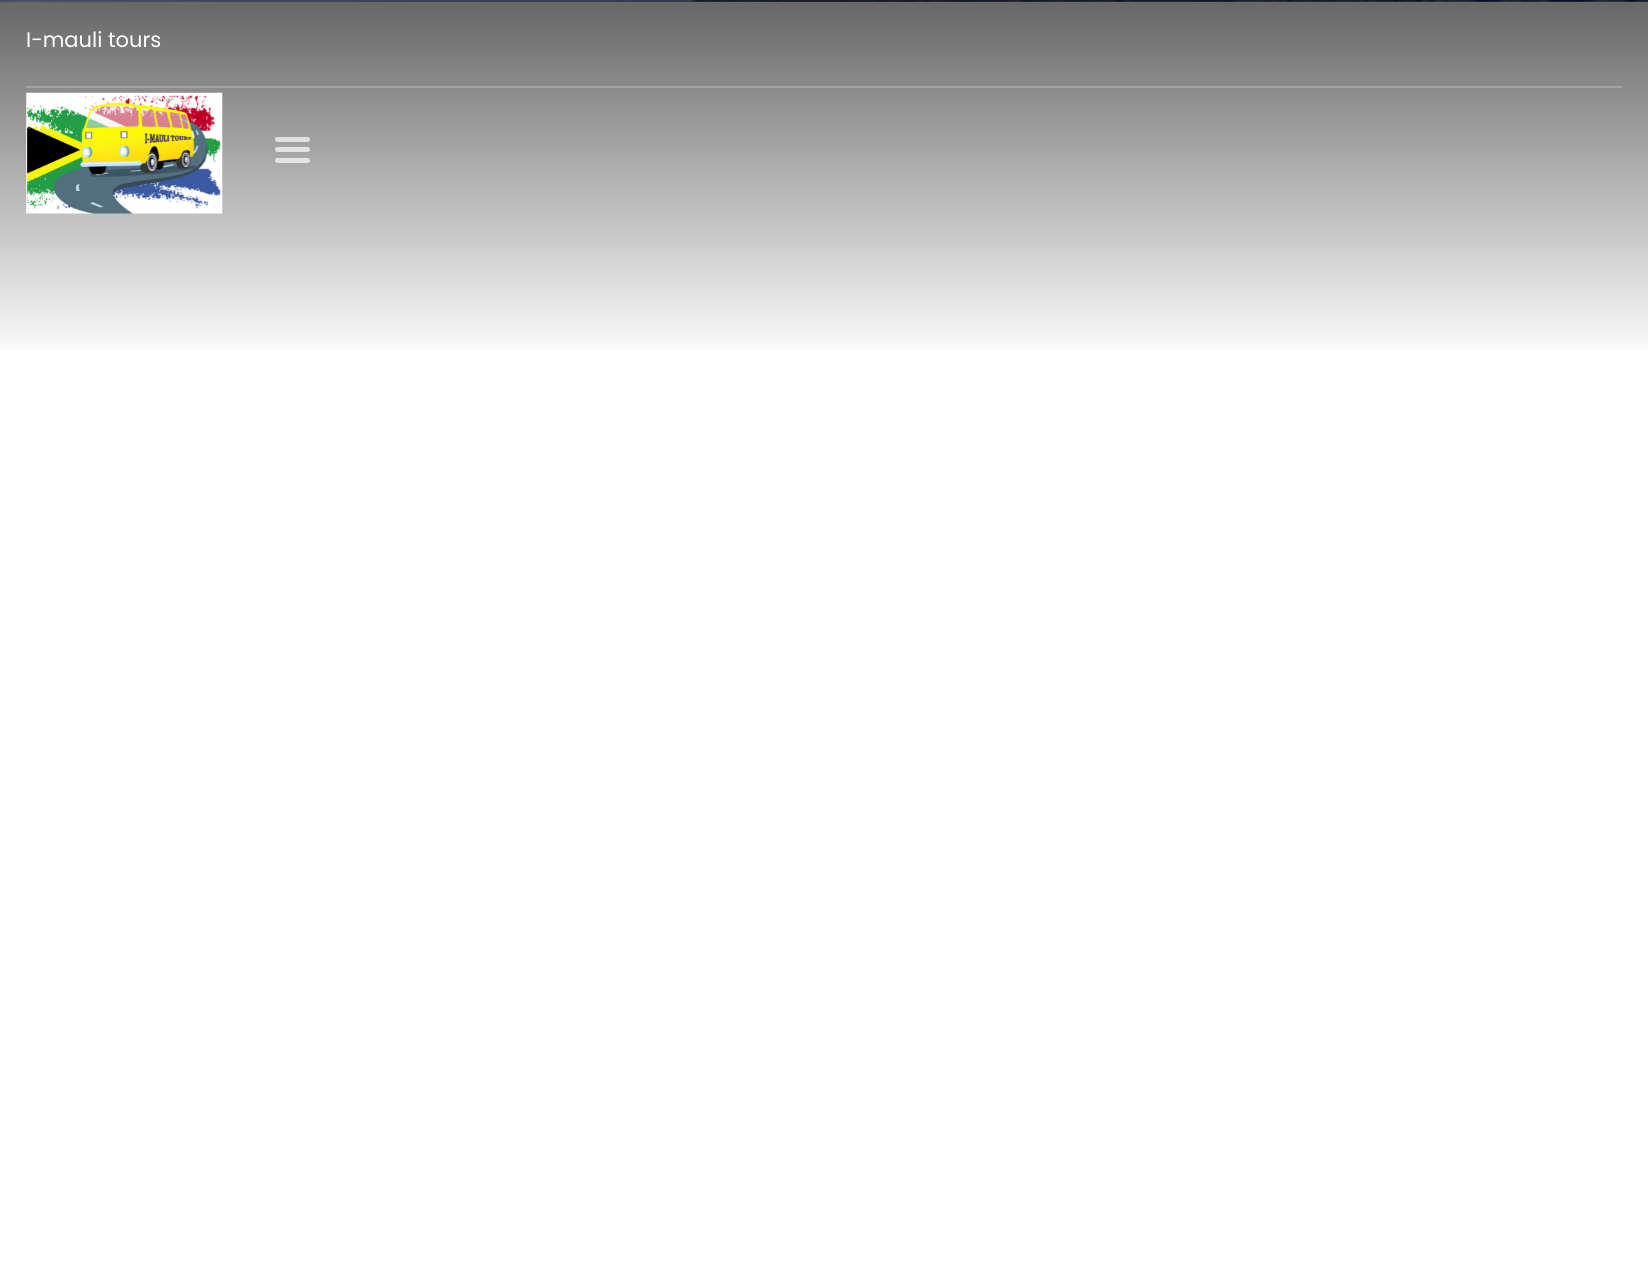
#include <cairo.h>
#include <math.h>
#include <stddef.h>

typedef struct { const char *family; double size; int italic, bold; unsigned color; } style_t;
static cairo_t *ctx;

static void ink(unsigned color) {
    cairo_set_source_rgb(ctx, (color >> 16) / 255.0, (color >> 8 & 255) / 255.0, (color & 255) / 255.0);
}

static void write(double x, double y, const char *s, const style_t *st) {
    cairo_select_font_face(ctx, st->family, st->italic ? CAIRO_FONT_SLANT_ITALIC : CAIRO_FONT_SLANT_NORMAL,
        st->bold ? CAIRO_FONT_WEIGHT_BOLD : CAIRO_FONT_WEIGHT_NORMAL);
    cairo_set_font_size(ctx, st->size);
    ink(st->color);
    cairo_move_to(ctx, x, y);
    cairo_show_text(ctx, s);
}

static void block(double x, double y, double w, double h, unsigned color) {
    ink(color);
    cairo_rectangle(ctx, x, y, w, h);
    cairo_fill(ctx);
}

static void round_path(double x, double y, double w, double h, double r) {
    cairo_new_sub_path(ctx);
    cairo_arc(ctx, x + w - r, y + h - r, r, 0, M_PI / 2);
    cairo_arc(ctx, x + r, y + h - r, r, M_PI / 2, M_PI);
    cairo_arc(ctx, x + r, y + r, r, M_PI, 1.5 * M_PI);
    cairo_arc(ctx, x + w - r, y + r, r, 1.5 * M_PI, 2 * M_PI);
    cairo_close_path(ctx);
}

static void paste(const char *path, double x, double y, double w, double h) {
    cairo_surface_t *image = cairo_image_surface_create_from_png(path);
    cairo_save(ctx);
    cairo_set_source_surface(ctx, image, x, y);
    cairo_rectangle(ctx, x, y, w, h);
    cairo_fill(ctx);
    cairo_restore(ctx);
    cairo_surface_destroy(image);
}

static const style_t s1 = {"Poppins", 21, 0, 0, 0xffffff};

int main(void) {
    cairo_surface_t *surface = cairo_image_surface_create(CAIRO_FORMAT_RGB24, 1648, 1264);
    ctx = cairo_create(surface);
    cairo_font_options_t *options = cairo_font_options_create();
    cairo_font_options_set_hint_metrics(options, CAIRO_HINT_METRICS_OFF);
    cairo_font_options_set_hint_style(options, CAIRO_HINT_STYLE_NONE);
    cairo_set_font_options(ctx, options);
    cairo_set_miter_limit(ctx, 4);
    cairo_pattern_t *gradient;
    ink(0xffffff);
    cairo_paint(ctx);
    paste("pic1.png", 0, 0, 1648, 2);
    gradient = cairo_pattern_create_radial(0, 0, 0, 0, 0, 1);
    cairo_pattern_set_matrix(gradient, &(cairo_matrix_t){1.0 / 1166, 0, 0, 1.0 / 15, -1.0 * 824 / 1166, -1.0 * 1.8 / 15});
    cairo_pattern_add_color_stop_rgba(gradient, 0, 0, 0, 0, 0.3);
    cairo_pattern_add_color_stop_rgba(gradient, 0.7, 0, 0, 0, 0);
    cairo_set_source(ctx, gradient);
    cairo_pattern_destroy(gradient);
    cairo_rectangle(ctx, 64, 0, 1520, 2);
    cairo_fill(ctx);
    gradient = cairo_pattern_create_linear(824, 0, 824, 362);
    cairo_pattern_add_color_stop_rgba(gradient, 0, 0, 0, 0, 0.6);
    cairo_pattern_add_color_stop_rgba(gradient, 1, 0, 0, 0, 0);
    cairo_set_source(ctx, gradient);
    cairo_pattern_destroy(gradient);
    cairo_rectangle(ctx, 0, 0, 1648, 349);
    cairo_fill(ctx);
    write(26, 47, "I-mauli tours", &s1);
    block(26, 86, 1596, 2, 0xa2a2a2);
    paste("pic2.png", 26, 92, 197, 122);
    ink(0xe1e1e1);
    round_path(275, 137, 35, 5, 2.5);
    cairo_fill(ctx);
    ink(0xe2e2e2);
    round_path(275, 147, 35, 5, 2.5);
    cairo_fill(ctx);
    ink(0xe4e4e4);
    round_path(275, 158, 35, 5, 2.5);
    cairo_fill(ctx);
    cairo_surface_write_to_png(surface, "screenshot.png");
    cairo_font_options_destroy(options);
    cairo_destroy(ctx);
    cairo_surface_destroy(surface);
    return 0;
}
